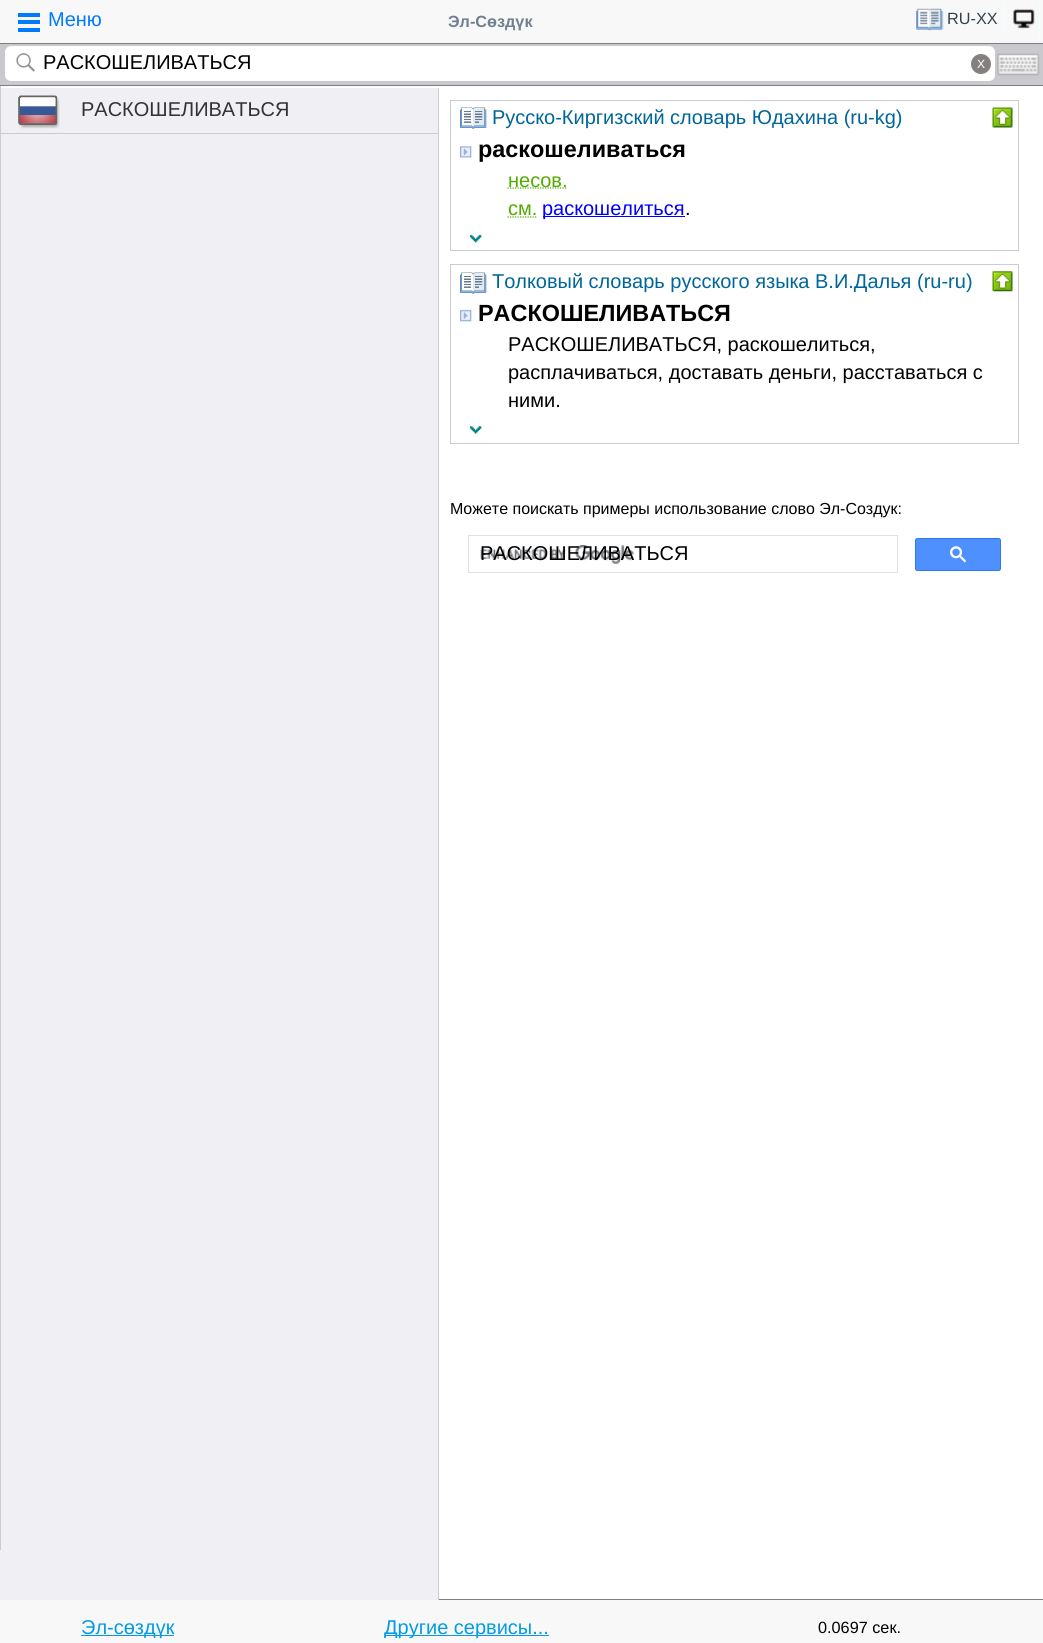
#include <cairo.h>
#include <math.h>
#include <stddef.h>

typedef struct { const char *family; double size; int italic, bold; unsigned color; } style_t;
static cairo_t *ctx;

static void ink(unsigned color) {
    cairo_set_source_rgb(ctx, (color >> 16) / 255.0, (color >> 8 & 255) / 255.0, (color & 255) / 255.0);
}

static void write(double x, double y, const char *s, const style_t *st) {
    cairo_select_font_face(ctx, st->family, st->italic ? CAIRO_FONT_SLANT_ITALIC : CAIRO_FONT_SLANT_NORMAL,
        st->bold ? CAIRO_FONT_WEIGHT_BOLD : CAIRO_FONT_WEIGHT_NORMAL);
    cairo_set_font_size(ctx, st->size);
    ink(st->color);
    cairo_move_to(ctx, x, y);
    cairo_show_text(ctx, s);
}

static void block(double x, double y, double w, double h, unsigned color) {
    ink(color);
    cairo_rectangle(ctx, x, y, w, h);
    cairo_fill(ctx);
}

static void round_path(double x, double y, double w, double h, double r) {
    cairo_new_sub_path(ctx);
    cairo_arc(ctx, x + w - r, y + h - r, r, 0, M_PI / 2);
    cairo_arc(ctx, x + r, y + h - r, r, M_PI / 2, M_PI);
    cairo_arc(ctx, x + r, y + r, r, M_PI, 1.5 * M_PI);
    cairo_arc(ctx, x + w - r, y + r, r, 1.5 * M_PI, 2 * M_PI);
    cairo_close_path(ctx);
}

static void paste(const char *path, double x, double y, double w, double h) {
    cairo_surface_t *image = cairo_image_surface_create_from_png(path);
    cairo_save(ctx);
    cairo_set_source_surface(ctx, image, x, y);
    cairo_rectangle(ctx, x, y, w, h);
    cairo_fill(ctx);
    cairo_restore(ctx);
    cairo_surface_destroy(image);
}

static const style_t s1 = {"Liberation Sans", 20, 0, 0, 0x007bff};
static const style_t s2 = {"Liberation Sans", 16.25, 0, 1, 0x708090};
static const style_t s3 = {"Liberation Sans", 16.25, 0, 0, 0x33404d};
static const style_t s4 = {"Liberation Sans", 20, 0, 0, 0x000000};
static const style_t s5 = {"Liberation Sans", 12, 0, 0, 0xffffff};
static const style_t s6 = {"Liberation Sans", 20, 0, 0, 0x333333};
static const style_t s7 = {"Liberation Sans", 20, 0, 0, 0x006699};
static const style_t s8 = {"Liberation Sans", 23.4, 0, 1, 0x000000};
static const style_t s9 = {"Liberation Sans", 20, 0, 0, 0x52ab00};
static const style_t s10 = {"Liberation Sans", 20, 0, 0, 0x0000ff};
static const style_t s11 = {"Liberation Sans", 16, 0, 0, 0x000000};
static const style_t s12 = {"Liberation Sans", 20, 0, 0, 0x039be5};
static const style_t s13 = {"Liberation Sans", 16.25, 0, 0, 0x000000};

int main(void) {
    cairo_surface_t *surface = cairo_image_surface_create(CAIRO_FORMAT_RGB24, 1043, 1643);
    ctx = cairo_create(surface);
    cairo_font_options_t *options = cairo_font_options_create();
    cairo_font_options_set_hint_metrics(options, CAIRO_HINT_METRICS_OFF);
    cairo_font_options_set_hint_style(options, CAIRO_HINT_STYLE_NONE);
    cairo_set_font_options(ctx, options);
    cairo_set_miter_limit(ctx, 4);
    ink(0xffffff);
    cairo_paint(ctx);
    block(0, 0, 1043, 43, 0xf8f8f8);
    block(0, 43, 1043, 1, 0x7e7e7e);
    block(18, 13, 22, 4, 0x007bff);
    block(18, 20, 22, 4, 0x007bff);
    block(18, 28, 22, 4, 0x007bff);
    write(48, 26, "Меню", &s1);
    write(448, 27, "Эл-Сөздүк", &s2);
    block(1003, 4, 1, 31, 0xf0ffff);
    paste("pic1.png", 916, 8, 28, 23);
    write(947, 24, "RU-XX", &s3);
    block(1039, 4, 1, 35, 0xf0ffff);
    paste("pic2.png", 1013, 9, 22, 20);
    block(0, 44, 1043, 41, 0xc9c9ce);
    block(0, 85, 1043, 1, 0x7e7e7e);
    ink(0xffffff);
    round_path(5, 46, 990, 35, 6);
    cairo_fill(ctx);
    paste("pic3.png", 16, 53, 19, 19);
    write(43, 69, "РАСКОШЕЛИВАТЬСЯ", &s4);
    ink(0x848080);
    cairo_new_path(ctx);
    cairo_arc(ctx, 981, 64, 10, 0, 2 * M_PI);
    cairo_fill(ctx);
    write(977, 68, "X", &s5);
    paste("pic4.png", 997, 53, 43, 23);
    block(0, 88, 438, 1512, 0xefeff4);
    block(0, 133, 438, 1, 0xcccccc);
    block(0, 86, 1, 1464, 0xcccccc);
    block(438, 88, 1, 1512, 0xcccccc);
    paste("pic5.png", 18, 95, 42, 34);
    write(81, 116, "РАСКОШЕЛИВАТЬСЯ", &s6);
    cairo_rectangle(ctx, 450.5, 100.5, 568, 150);
    ink(0xcccccc);
    cairo_set_line_width(ctx, 1);
    cairo_stroke(ctx);
    paste("pic6.png", 460, 107, 27, 22);
    write(492, 124, "Русско-Киргизский словарь Юдахина (ru-kg)", &s7);
    paste("pic7.png", 992, 107, 21, 21);
    paste("pic8.png", 460, 146, 12, 12);
    write(478, 157, "раскошеливаться", &s8);
    cairo_new_path(ctx);
    cairo_move_to(ctx, 507.5, 188);
    cairo_line_to(ctx, 567, 188);
    ink(0x52ab00);
    cairo_set_line_width(ctx, 1.2);
    cairo_set_dash(ctx, (double[]){1.25, 1.25}, 2, 0);
    cairo_stroke(ctx);
    write(508, 187, "несов.", &s9);
    write(508, 215, "см.", &s9);
    cairo_new_path(ctx);
    cairo_move_to(ctx, 507.5, 217);
    cairo_line_to(ctx, 537, 217);
    cairo_stroke(ctx);
    block(543, 216, 142, 1, 0x0000ff);
    write(542, 215, "раскошелиться", &s10);
    write(685, 215, ".", &s4);
    paste("pic9.png", 466, 234, 16, 9);
    cairo_rectangle(ctx, 450.5, 264.5, 568, 179);
    ink(0xcccccc);
    cairo_set_line_width(ctx, 1);
    cairo_set_dash(ctx, NULL, 0, 0);
    cairo_stroke(ctx);
    paste("pic6.png", 460, 272, 27, 22);
    write(492, 288, "Толковый словарь русского языка В.И.Далья (ru-ru)", &s7);
    paste("pic10.png", 992, 271, 21, 21);
    paste("pic11.png", 460, 309, 12, 13);
    write(478, 321, "РАСКОШЕЛИВАТЬСЯ", &s8);
    write(508, 351, "РАСКОШЕЛИВАТЬСЯ, раскошелиться,", &s4);
    write(508, 379, "расплачиваться, доставать деньги, расставаться с", &s4);
    write(508, 407, "ними.", &s4);
    paste("pic12.png", 466, 426, 16, 8);
    write(450, 514, "Можете поискать примеры использование слово Эл-Создук:", &s11);
    cairo_rectangle(ctx, 468.5, 535.5, 429, 37);
    ink(0xdfe1e5);
    cairo_stroke(ctx);
    paste("pic13.png", 480, 545, 154, 19);
    write(480, 560, "РАСКОШЕЛИВАТЬСЯ", &s4);
    ink(0x4d90fe);
    round_path(915.5, 538.5, 85, 32, 2);
    cairo_fill_preserve(ctx);
    ink(0x3079ed);
    cairo_stroke(ctx);
    paste("pic14.png", 950, 546, 16, 17);
    block(0, 1600, 1043, 43, 0xf8f8f8);
    block(439, 1599, 604, 1, 0x7e7e7e);
    block(81, 1635, 93, 1, 0x039be5);
    write(81, 1634, "Эл-сөздүк", &s12);
    block(385, 1635, 164, 1, 0x039be5);
    write(384, 1634, "Другие сервисы...", &s12);
    write(818, 1633, "0.0697 сек.", &s13);
    cairo_surface_write_to_png(surface, "screenshot.png");
    cairo_font_options_destroy(options);
    cairo_destroy(ctx);
    cairo_surface_destroy(surface);
    return 0;
}
